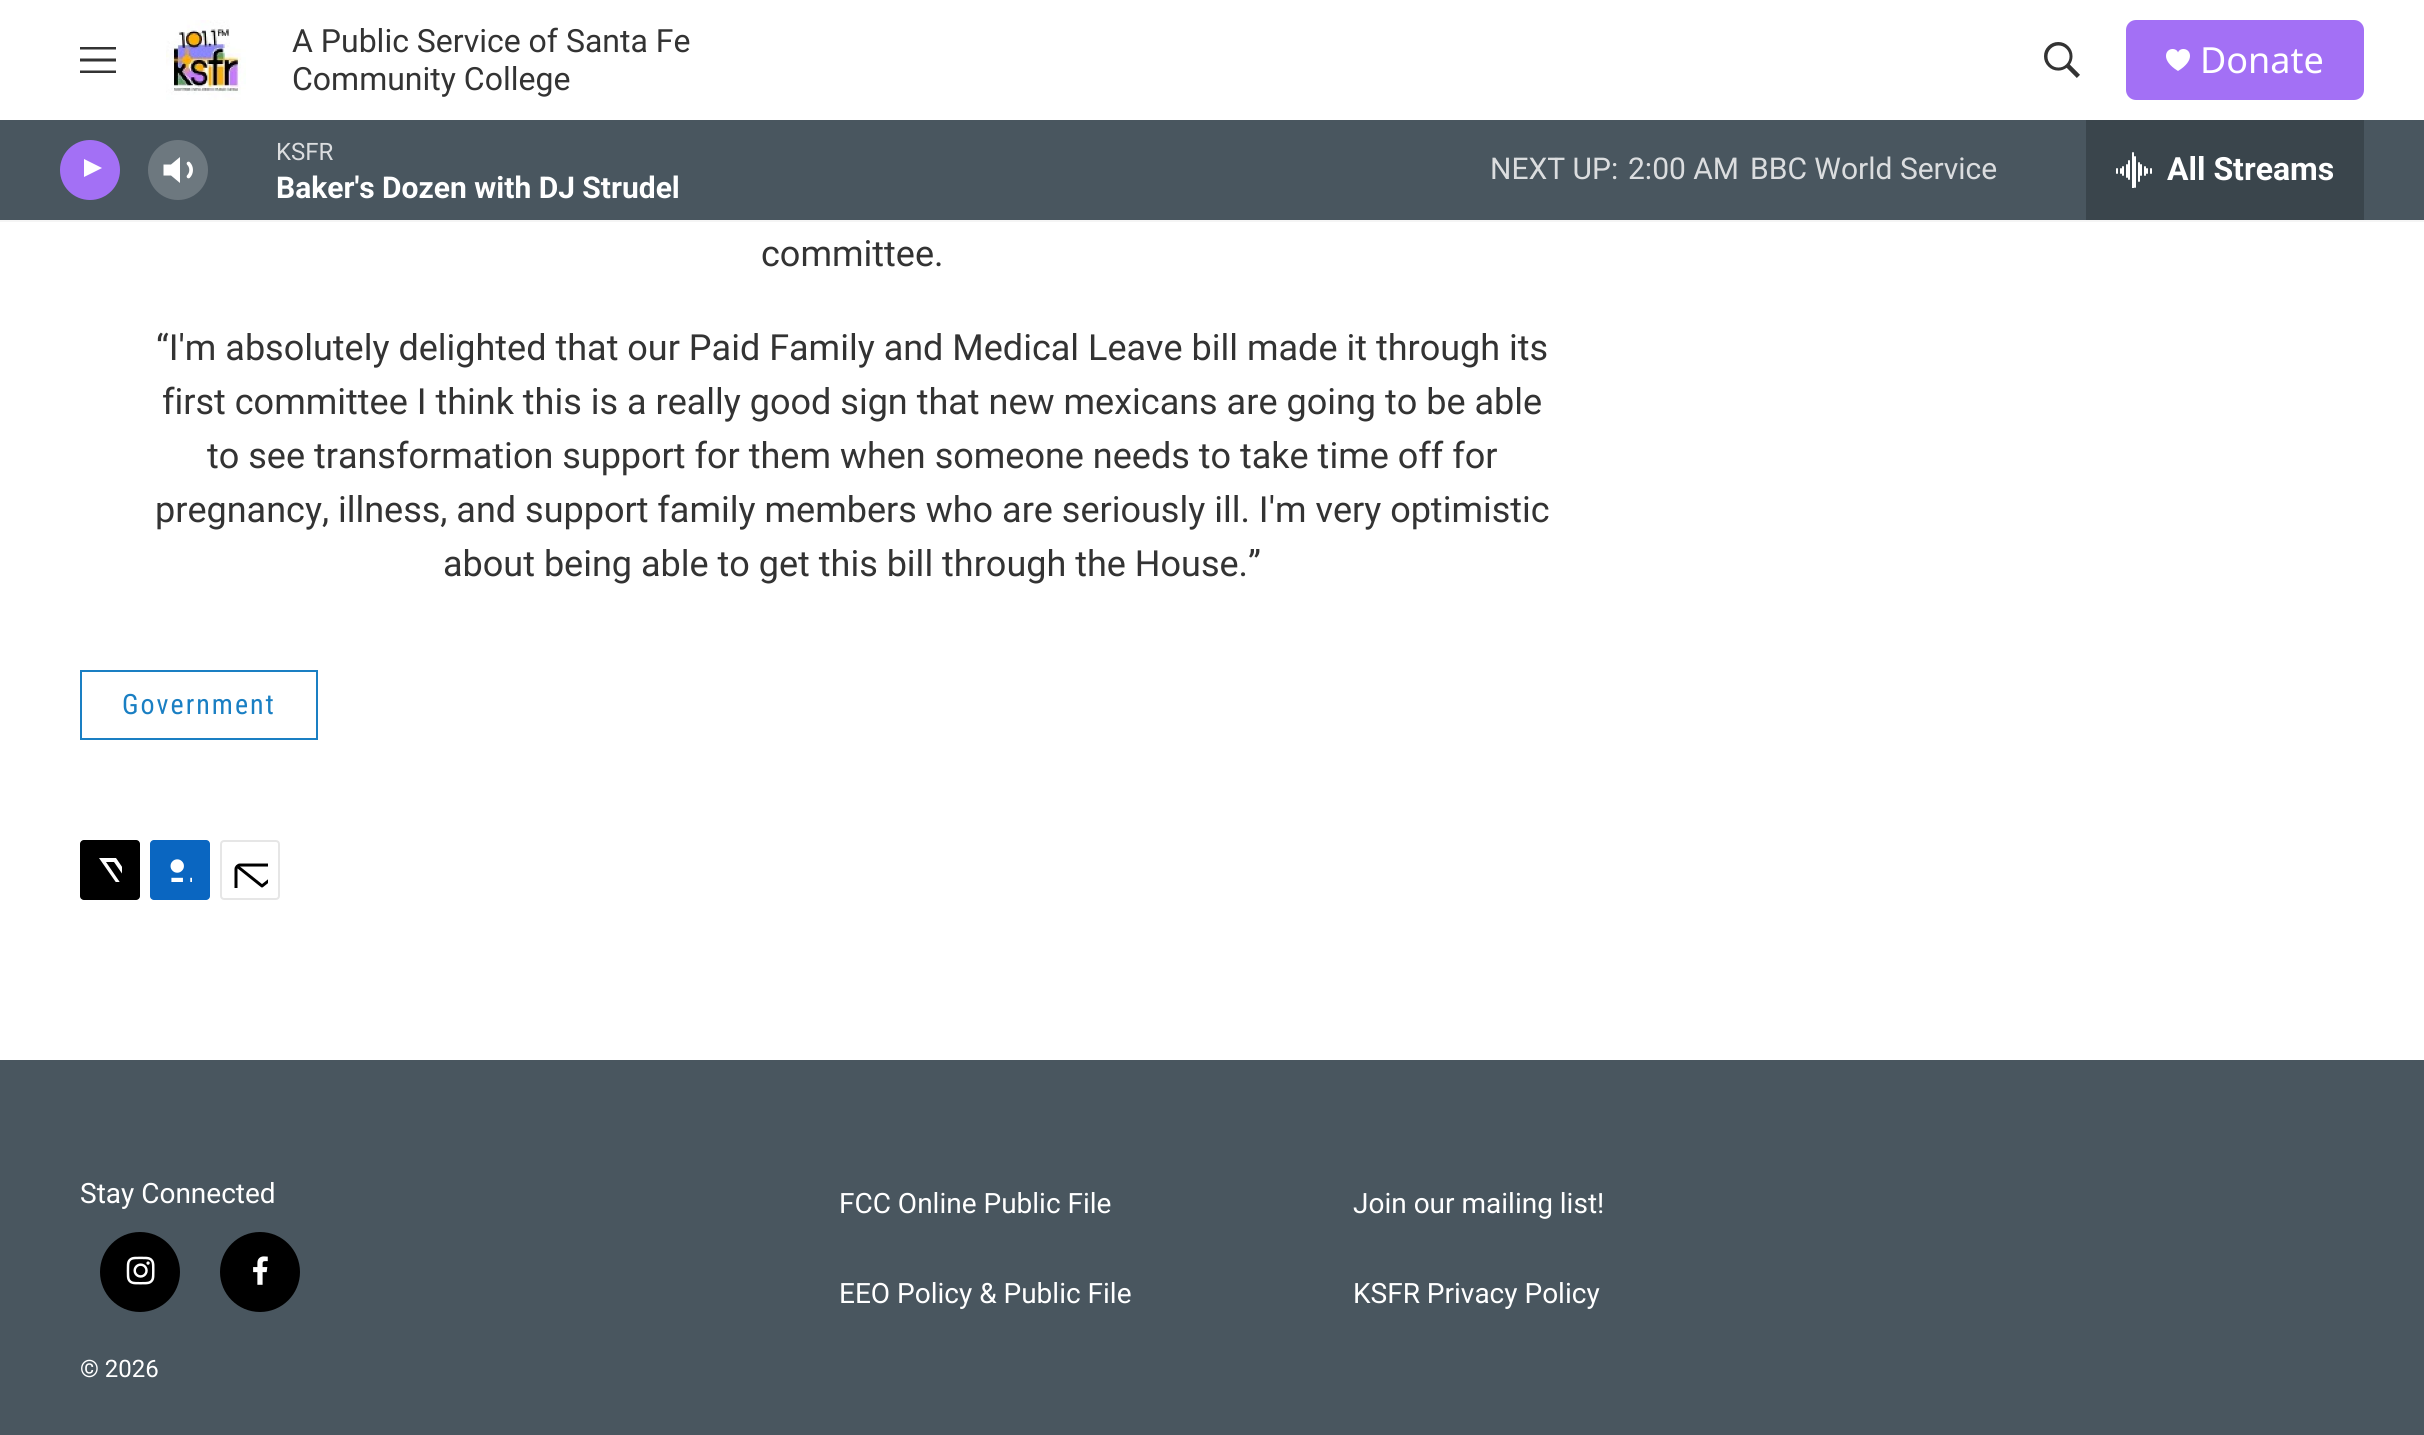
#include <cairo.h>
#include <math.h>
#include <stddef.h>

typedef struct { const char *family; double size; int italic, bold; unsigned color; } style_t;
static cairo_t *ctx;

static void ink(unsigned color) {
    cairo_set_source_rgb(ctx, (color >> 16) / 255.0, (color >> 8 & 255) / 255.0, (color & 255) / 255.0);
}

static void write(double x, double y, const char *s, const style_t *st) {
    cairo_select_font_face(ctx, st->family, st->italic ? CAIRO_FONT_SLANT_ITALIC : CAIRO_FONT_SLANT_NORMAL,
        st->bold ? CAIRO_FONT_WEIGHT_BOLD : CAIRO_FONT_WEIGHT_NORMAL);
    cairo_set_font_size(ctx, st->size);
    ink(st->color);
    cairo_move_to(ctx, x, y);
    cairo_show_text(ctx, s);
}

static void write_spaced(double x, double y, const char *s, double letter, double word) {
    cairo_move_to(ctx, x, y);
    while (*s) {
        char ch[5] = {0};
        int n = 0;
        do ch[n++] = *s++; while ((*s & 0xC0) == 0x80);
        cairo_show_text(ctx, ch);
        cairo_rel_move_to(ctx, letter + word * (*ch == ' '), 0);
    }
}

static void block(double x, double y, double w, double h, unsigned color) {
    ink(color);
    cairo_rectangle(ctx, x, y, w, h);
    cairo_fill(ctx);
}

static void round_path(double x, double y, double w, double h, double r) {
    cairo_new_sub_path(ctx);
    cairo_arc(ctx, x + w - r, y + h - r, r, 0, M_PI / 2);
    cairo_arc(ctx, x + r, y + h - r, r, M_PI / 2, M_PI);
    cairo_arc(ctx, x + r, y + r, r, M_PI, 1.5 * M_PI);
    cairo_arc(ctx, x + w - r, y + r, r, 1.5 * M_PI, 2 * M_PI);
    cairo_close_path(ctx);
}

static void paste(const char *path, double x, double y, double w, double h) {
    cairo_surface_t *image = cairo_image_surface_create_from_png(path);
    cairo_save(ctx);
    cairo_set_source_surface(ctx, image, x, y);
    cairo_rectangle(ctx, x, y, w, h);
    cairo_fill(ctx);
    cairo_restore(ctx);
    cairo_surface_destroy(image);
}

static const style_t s1 = {"Roboto", 32, 0, 0, 0x333333};
static const style_t s2 = {"Noto Sans", 36, 0, 0, 0xffffff};
static const style_t s3 = {"Roboto", 24, 0, 0, 0xdbdddf};
static const style_t s4 = {"Roboto", 30, 0, 1, 0xffffff};
static const style_t s5 = {"Roboto", 30, 0, 0, 0xdbdddf};
static const style_t s6 = {"Roboto", 32, 0, 1, 0xffffff};
static const style_t s7 = {"Roboto", 36, 0, 0, 0x333333};
static const style_t s8 = {"Roboto", 28, 0, 0, 0xffffff};
static const style_t s9 = {"Roboto", 24, 0, 0, 0xffffff};

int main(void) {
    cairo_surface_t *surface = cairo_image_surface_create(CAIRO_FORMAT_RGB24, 2424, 1435);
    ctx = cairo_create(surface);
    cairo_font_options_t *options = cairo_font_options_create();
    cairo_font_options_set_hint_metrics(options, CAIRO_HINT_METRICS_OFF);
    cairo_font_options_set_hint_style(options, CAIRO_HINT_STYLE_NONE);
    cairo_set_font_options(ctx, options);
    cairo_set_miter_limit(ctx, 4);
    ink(0xffffff);
    cairo_paint(ctx);
    block(0, 220, 2424, 2, 0xf5f5f5);
    ink(0x333333);
    cairo_set_fill_rule(ctx, CAIRO_FILL_RULE_EVEN_ODD);
    cairo_new_path(ctx);
    cairo_move_to(ctx, 80, 61.5);
    cairo_line_to(ctx, 80, 58.5);
    cairo_line_to(ctx, 116, 58.5);
    cairo_line_to(ctx, 116, 61.5);
    cairo_close_path(ctx);
    cairo_move_to(ctx, 80, 49.5);
    cairo_line_to(ctx, 80, 47);
    cairo_line_to(ctx, 116, 47);
    cairo_line_to(ctx, 116, 49.5);
    cairo_close_path(ctx);
    cairo_move_to(ctx, 80, 73);
    cairo_line_to(ctx, 80, 70.5);
    cairo_line_to(ctx, 116, 70.5);
    cairo_line_to(ctx, 116, 73);
    cairo_close_path(ctx);
    cairo_fill(ctx);
    paste("pic1.png", 166, 20, 80, 80);
    write(292, 52, "A Public Service of Santa Fe", &s1);
    write(292, 90, "Community College", &s1);
    paste("pic2.png", 2044, 42, 36, 36);
    ink(0xa370f5);
    round_path(2126, 20, 238, 80, 10);
    cairo_fill(ctx);
    paste("pic3.png", 2166, 49, 24, 22);
    write(2200, 73, "Donate", &s2);
    block(0, 120, 2424, 100, 0x49565f);
    ink(0xa370f5);
    cairo_new_path(ctx);
    cairo_arc(ctx, 90, 170, 30, 0, 2 * M_PI);
    cairo_fill(ctx);
    cairo_save(ctx);
    cairo_set_fill_rule(ctx, CAIRO_FILL_RULE_WINDING);
    cairo_rectangle(ctx, 84, 156, 23, 30);
    cairo_clip(ctx);
    ink(0xffffff);
    cairo_new_path(ctx);
    cairo_move_to(ctx, 83, 158.5);
    cairo_line_to(ctx, 102, 168);
    cairo_line_to(ctx, 83, 177.5);
    cairo_close_path(ctx);
    cairo_fill(ctx);
    cairo_restore(ctx);
    ink(0xffffff);
    cairo_set_fill_rule(ctx, CAIRO_FILL_RULE_WINDING);
    cairo_new_path(ctx);
    cairo_move_to(ctx, 180, 157);
    cairo_line_to(ctx, 171, 164.5);
    cairo_line_to(ctx, 163.5, 164.5);
    cairo_line_to(ctx, 163.5, 175.5);
    cairo_line_to(ctx, 171, 175.5);
    cairo_line_to(ctx, 180, 183);
    cairo_close_path(ctx);
    cairo_fill(ctx);
    cairo_new_path(ctx);
    cairo_move_to(ctx, 188.5, 163.5);
    cairo_curve_to(ctx, 192, 167, 192, 173, 188.5, 176.5);
    cairo_set_line_width(ctx, 3.7);
    cairo_set_line_cap(ctx, CAIRO_LINE_CAP_ROUND);
    cairo_set_line_join(ctx, CAIRO_LINE_JOIN_ROUND);
    cairo_stroke(ctx);
    cairo_set_source_rgba(ctx, 1, 1, 1, 0.2);
    cairo_arc(ctx, 178, 170, 30, 0, 2 * M_PI);
    cairo_fill(ctx);
    write(276, 160, "KSFR", &s3);
    write(276, 198, "Baker's Dozen with DJ Strudel", &s4);
    write(1490, 179, "NEXT UP:", &s5);
    write(1628, 179, "2:00 AM", &s5);
    write(1750, 179, "BBC World Service", &s5);
    block(2086, 120, 278, 100, 0x3a454c);
    paste("pic4.png", 2116, 152, 36, 36);
    write(2167, 180, "All Streams", &s6);
    write(761, 266, "committee.", &s7);
    write(156, 360, "“I'm absolutely delighted that our Paid Family and Medical Leave bill made it through its", &s7);
    write(162, 414, "first committee I think this is a really good sign that new mexicans are going to be able", &s7);
    write(207, 468, "to see transformation support for them when someone needs to take time off for", &s7);
    write(155, 522, "pregnancy, illness, and support family members who are seriously ill. I'm very optimistic", &s7);
    write(443, 576, "about being able to get this bill through the House.”", &s7);
    cairo_rectangle(ctx, 81, 671, 236, 68);
    ink(0x1a7fc3);
    cairo_set_line_width(ctx, 2);
    cairo_set_line_cap(ctx, CAIRO_LINE_CAP_BUTT);
    cairo_set_line_join(ctx, CAIRO_LINE_JOIN_MITER);
    cairo_stroke(ctx);
    cairo_select_font_face(ctx, "Roboto Condensed", CAIRO_FONT_SLANT_NORMAL, CAIRO_FONT_WEIGHT_NORMAL);
    cairo_set_font_size(ctx, 28);
    write_spaced(122, 714, "Government", 2, 0);
    ink(0x000000);
    round_path(80, 840, 60, 60, 4);
    cairo_fill(ctx);
    cairo_save(ctx);
    cairo_rectangle(ctx, 98, 858, 24, 24);
    cairo_clip(ctx);
    ink(0xffffff);
    cairo_new_path(ctx);
    cairo_move_to(ctx, 134, 883);
    cairo_line_to(ctx, 140, 892);
    cairo_curve_to(ctx, 140, 894, 141, 897, 139, 898);
    cairo_line_to(ctx, 114, 862);
    cairo_line_to(ctx, 106, 862);
    cairo_line_to(ctx, 132, 900);
    cairo_line_to(ctx, 127, 900);
    cairo_line_to(ctx, 124, 895);
    cairo_line_to(ctx, 120, 900);
    cairo_line_to(ctx, 114, 900);
    cairo_line_to(ctx, 122, 891);
    cairo_line_to(ctx, 99, 858);
    cairo_line_to(ctx, 116, 858);
    cairo_line_to(ctx, 131, 880);
    cairo_line_to(ctx, 140, 870);
    cairo_line_to(ctx, 140, 876);
    cairo_close_path(ctx);
    cairo_fill(ctx);
    cairo_restore(ctx);
    ink(0x0a66c1);
    round_path(150, 840, 60, 60, 4);
    cairo_fill(ctx);
    paste("pic5.png", 170, 859, 22, 23);
    round_path(221, 841, 58, 58, 3);
    ink(0xe6e6e6);
    cairo_stroke(ctx);
    cairo_save(ctx);
    cairo_rectangle(ctx, 232, 852, 36, 36);
    cairo_clip(ctx);
    cairo_new_path(ctx);
    cairo_move_to(ctx, 288, 896);
    cairo_curve_to(ctx, 288, 898, 286, 899.5, 284, 899.5);
    cairo_line_to(ctx, 240, 899.5);
    cairo_curve_to(ctx, 238, 899.5, 236, 898, 236, 896);
    cairo_line_to(ctx, 236, 869);
    cairo_curve_to(ctx, 236, 867, 238, 865, 240, 865);
    cairo_line_to(ctx, 284, 865);
    cairo_curve_to(ctx, 286, 865, 288, 867, 288, 869);
    cairo_close_path(ctx);
    cairo_move_to(ctx, 286.5, 866.5);
    cairo_line_to(ctx, 262, 886);
    cairo_line_to(ctx, 237.5, 866.5);
    ink(0x000000);
    cairo_set_line_width(ctx, 3);
    cairo_set_line_cap(ctx, CAIRO_LINE_CAP_ROUND);
    cairo_set_line_join(ctx, CAIRO_LINE_JOIN_ROUND);
    cairo_stroke(ctx);
    cairo_restore(ctx);
    block(0, 1060, 2424, 375, 0x49565f);
    write(80, 1203, "Stay Connected", &s8);
    ink(0x000000);
    cairo_new_path(ctx);
    cairo_arc(ctx, 140, 1272, 40, 0, 2 * M_PI);
    cairo_fill(ctx);
    paste("pic6.png", 126, 1256, 29, 29);
    cairo_arc(ctx, 260, 1272, 40, 0, 2 * M_PI);
    cairo_fill(ctx);
    paste("pic7.png", 253, 1256, 15, 29);
    write(80, 1377, "© 2026", &s9);
    write(839, 1213, "FCC Online Public File", &s8);
    write(1353, 1213, "Join our mailing list!", &s8);
    write(839, 1303, "EEO Policy & Public File", &s8);
    write(1353, 1303, "KSFR Privacy Policy", &s8);
    cairo_surface_write_to_png(surface, "screenshot.png");
    cairo_font_options_destroy(options);
    cairo_destroy(ctx);
    cairo_surface_destroy(surface);
    return 0;
}
